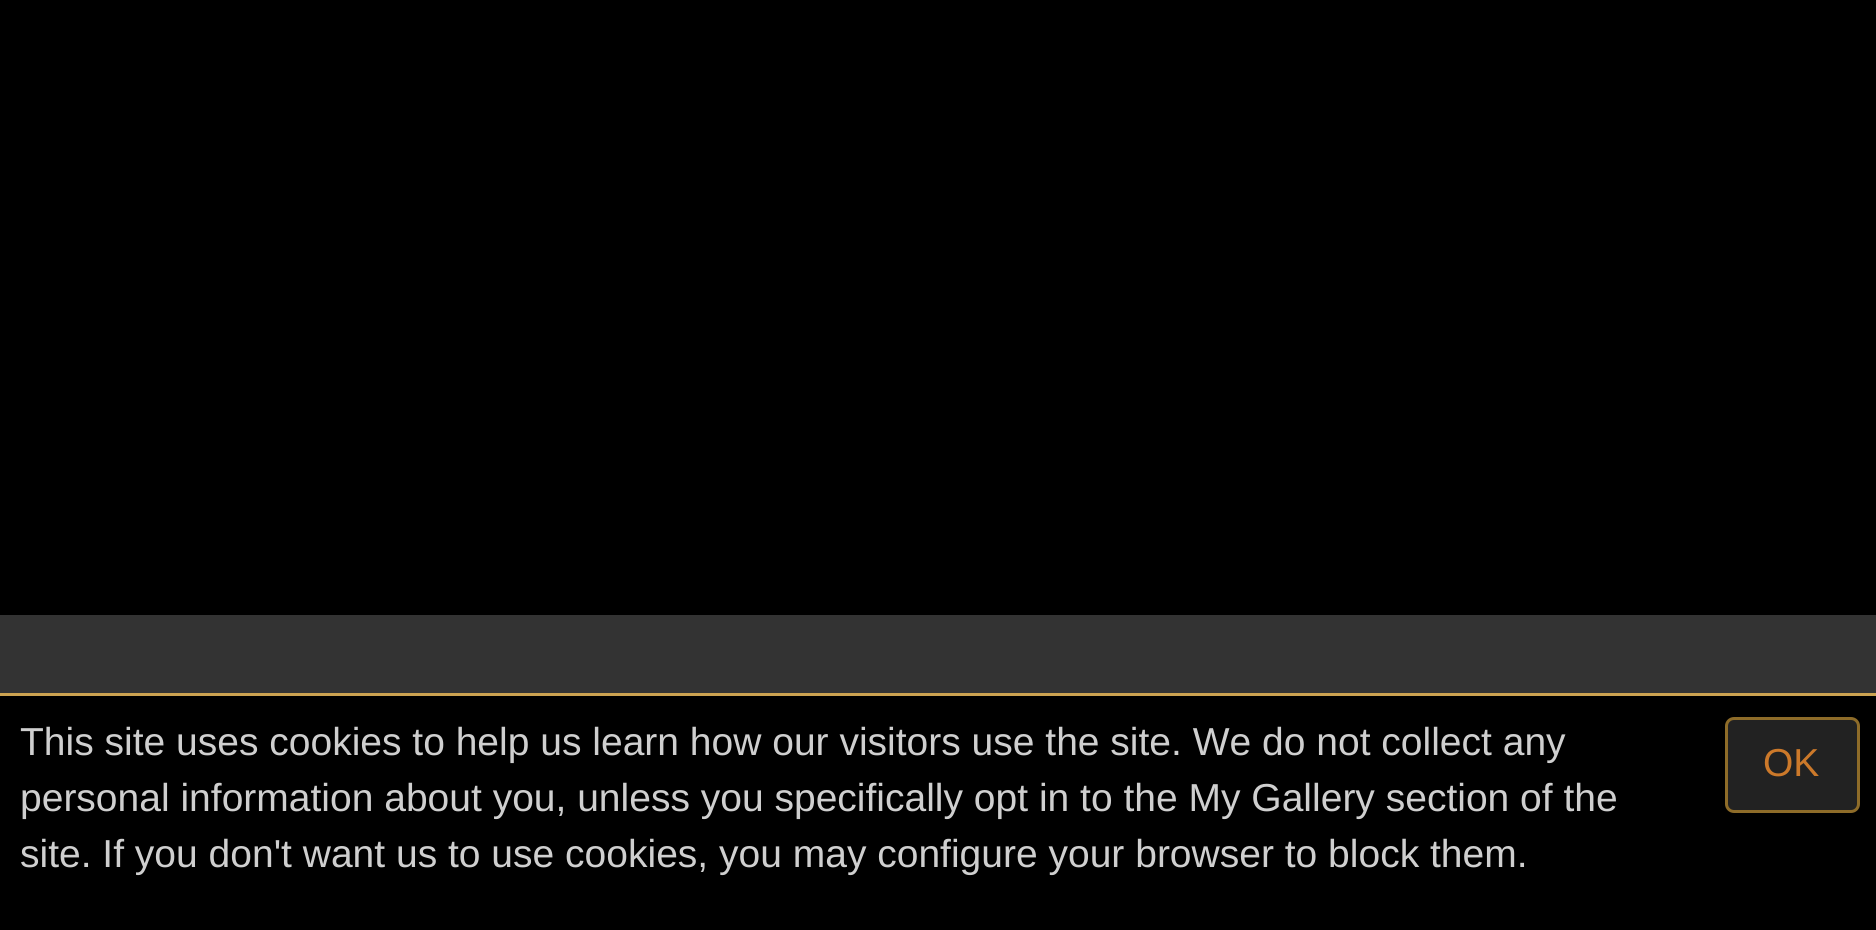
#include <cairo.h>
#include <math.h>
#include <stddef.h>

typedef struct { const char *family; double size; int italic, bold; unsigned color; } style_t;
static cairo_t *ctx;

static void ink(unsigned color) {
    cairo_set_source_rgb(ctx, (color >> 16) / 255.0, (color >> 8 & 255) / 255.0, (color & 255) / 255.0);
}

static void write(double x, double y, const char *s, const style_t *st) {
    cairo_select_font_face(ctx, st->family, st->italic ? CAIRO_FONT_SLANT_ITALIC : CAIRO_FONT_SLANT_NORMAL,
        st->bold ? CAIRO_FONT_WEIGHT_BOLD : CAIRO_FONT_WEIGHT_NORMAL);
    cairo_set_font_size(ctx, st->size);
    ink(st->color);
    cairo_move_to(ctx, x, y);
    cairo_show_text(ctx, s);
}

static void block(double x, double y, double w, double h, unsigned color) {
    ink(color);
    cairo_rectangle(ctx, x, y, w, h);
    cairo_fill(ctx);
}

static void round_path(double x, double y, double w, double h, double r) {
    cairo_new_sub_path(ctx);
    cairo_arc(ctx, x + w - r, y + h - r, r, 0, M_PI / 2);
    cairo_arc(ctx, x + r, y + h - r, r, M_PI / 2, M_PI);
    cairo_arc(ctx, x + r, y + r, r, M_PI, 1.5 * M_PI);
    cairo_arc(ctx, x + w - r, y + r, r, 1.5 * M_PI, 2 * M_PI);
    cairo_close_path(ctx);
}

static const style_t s1 = {"Liberation Sans", 39, 0, 0, 0xcfcfcf};
static const style_t s2 = {"Liberation Sans", 39, 0, 0, 0xcc792a};

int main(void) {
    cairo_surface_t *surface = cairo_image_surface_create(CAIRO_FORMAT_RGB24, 1876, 930);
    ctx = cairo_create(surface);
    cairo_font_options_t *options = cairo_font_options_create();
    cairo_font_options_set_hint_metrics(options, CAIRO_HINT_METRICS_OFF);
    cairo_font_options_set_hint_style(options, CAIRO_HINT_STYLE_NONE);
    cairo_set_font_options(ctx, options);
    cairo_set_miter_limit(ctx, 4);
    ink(0x333333);
    cairo_paint(ctx);
    block(0, 0, 1876, 615, 0x000000);
    block(0, 696, 1876, 234, 0x000000);
    block(0, 693, 1876, 3, 0xcca351);
    write(20, 755, "This site uses cookies to help us learn how our visitors use the site. We do not collect any", &s1);
    write(20, 811, "personal information about you, unless you specifically opt in to the My Gallery section of the", &s1);
    write(20, 867, "site. If you don't want us to use cookies, you may configure your browser to block them.", &s1);
    ink(0x222222);
    round_path(1726.5, 718.5, 132, 93, 7.5);
    cairo_fill_preserve(ctx);
    ink(0x8e6c29);
    cairo_set_line_width(ctx, 3);
    cairo_stroke(ctx);
    write(1763, 776, "OK", &s2);
    cairo_surface_write_to_png(surface, "screenshot.png");
    cairo_font_options_destroy(options);
    cairo_destroy(ctx);
    cairo_surface_destroy(surface);
    return 0;
}
